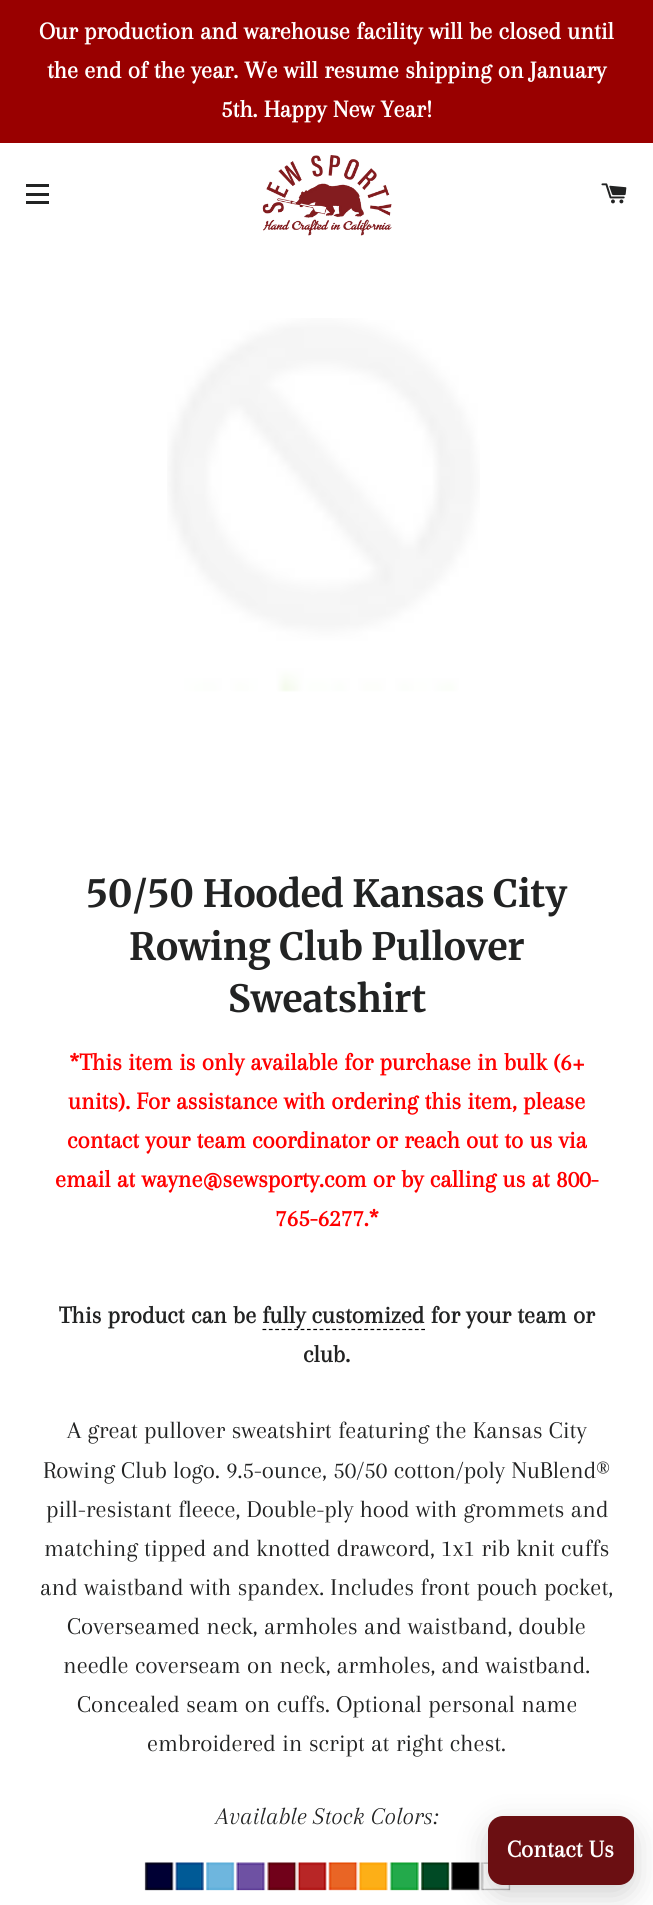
#include <cairo.h>
#include <math.h>
#include <stddef.h>

typedef struct { const char *family; double size; int italic, bold; unsigned color; } style_t;
static cairo_t *ctx;

static void ink(unsigned color) {
    cairo_set_source_rgb(ctx, (color >> 16) / 255.0, (color >> 8 & 255) / 255.0, (color & 255) / 255.0);
}

static void write(double x, double y, const char *s, const style_t *st) {
    cairo_select_font_face(ctx, st->family, st->italic ? CAIRO_FONT_SLANT_ITALIC : CAIRO_FONT_SLANT_NORMAL,
        st->bold ? CAIRO_FONT_WEIGHT_BOLD : CAIRO_FONT_WEIGHT_NORMAL);
    cairo_set_font_size(ctx, st->size);
    ink(st->color);
    cairo_move_to(ctx, x, y);
    cairo_show_text(ctx, s);
}

static void block(double x, double y, double w, double h, unsigned color) {
    ink(color);
    cairo_rectangle(ctx, x, y, w, h);
    cairo_fill(ctx);
}

static void round_path(double x, double y, double w, double h, double r) {
    cairo_new_sub_path(ctx);
    cairo_arc(ctx, x + w - r, y + h - r, r, 0, M_PI / 2);
    cairo_arc(ctx, x + r, y + h - r, r, M_PI / 2, M_PI);
    cairo_arc(ctx, x + r, y + r, r, M_PI, 1.5 * M_PI);
    cairo_arc(ctx, x + w - r, y + r, r, 1.5 * M_PI, 2 * M_PI);
    cairo_close_path(ctx);
}

static void blur_box(double x, double y, double w, double h, double r, double blur, double alpha) {
    cairo_push_group_with_content(ctx, CAIRO_CONTENT_ALPHA);
    cairo_set_operator(ctx, CAIRO_OPERATOR_SOURCE);
    for (int i = 15; i >= -15 && fmin(w, h) + blur * i / 3 > 0; i -= 2) {
        double e = blur * i / 6;
        cairo_set_source_rgba(ctx, 0, 0, 0, alpha * erfc((i - 1) / 8.5) / 2);
        round_path(x - e, y - e, w + 2 * e, h + 2 * e, fmax(0, fmin(r + e + blur * .6, fmin(w, h) / 2 + e)));
        cairo_fill(ctx);
    }
    cairo_pattern_t *soft = cairo_pop_group(ctx);
    cairo_mask(ctx, soft);
    cairo_pattern_destroy(soft);
}

static void paste(const char *path, double x, double y, double w, double h) {
    cairo_surface_t *image = cairo_image_surface_create_from_png(path);
    cairo_save(ctx);
    cairo_set_source_surface(ctx, image, x, y);
    cairo_rectangle(ctx, x, y, w, h);
    cairo_fill(ctx);
    cairo_restore(ctx);
    cairo_surface_destroy(image);
}

static const style_t s1 = {"Arapey", 25, 0, 1, 0xffffff};
static const style_t s2 = {"Merriweather", 37.5, 0, 1, 0x222323};
static const style_t s3 = {"Arapey", 25, 0, 1, 0xff0000};
static const style_t s4 = {"Arapey", 25, 0, 1, 0x222323};
static const style_t s5 = {"Arapey", 25, 0, 0, 0x222323};
static const style_t s6 = {"Arapey", 25, 1, 0, 0x222323};

int main(void) {
    cairo_surface_t *surface = cairo_image_surface_create(CAIRO_FORMAT_RGB24, 653, 1905);
    ctx = cairo_create(surface);
    cairo_font_options_t *options = cairo_font_options_create();
    cairo_font_options_set_hint_metrics(options, CAIRO_HINT_METRICS_OFF);
    cairo_font_options_set_hint_style(options, CAIRO_HINT_STYLE_NONE);
    cairo_set_font_options(ctx, options);
    cairo_set_miter_limit(ctx, 4);
    ink(0xffffff);
    cairo_paint(ctx);
    block(0, 0, 653, 143, 0x990000);
    write(39, 39, "Our production and warehouse facility will be closed until", &s1);
    write(47, 78, "the end of the year. We will resume shipping on January", &s1);
    write(221, 117, "5th. Happy New Year!", &s1);
    block(26, 184, 23, 3, 0x222323);
    block(26, 193, 23, 3, 0x222323);
    block(26, 201, 23, 3, 0x222323);
    paste("pic1.png", 262, 155, 130, 81);
    paste("pic2.png", 601, 183, 26, 21);
    paste("pic3.png", 167, 318, 313, 374);
    write(86, 907, "50/50 Hooded Kansas City", &s2);
    write(129, 960, "Rowing Club Pullover", &s2);
    write(228, 1012, "Sweatshirt", &s2);
    write(69, 1070, "*This item is only available for purchase in bulk (6+", &s3);
    write(68, 1109, "units). For assistance with ordering this item, please", &s3);
    write(67, 1148, "contact your team coordinator or reach out to us via", &s3);
    write(55, 1187, "email at wayne@sewsporty.com or by calling us at 800-", &s3);
    write(275, 1226, "765-6277.*", &s3);
    write(59, 1323, "This product can be", &s4);
    cairo_new_path(ctx);
    cairo_move_to(ctx, 262.5, 1329.5);
    cairo_line_to(ctx, 425, 1329.5);
    ink(0x000000);
    cairo_set_line_width(ctx, 1.2);
    cairo_set_dash(ctx, (double[]){3.75, 2.6}, 2, 0);
    cairo_stroke(ctx);
    write(262, 1323, "fully customized for your team or", &s4);
    write(303, 1362, "club.", &s4);
    write(67, 1438, "A great pullover sweatshirt featuring the Kansas City", &s5);
    write(43, 1478, "Rowing Club logo. 9.5-ounce, 50/50 cotton/poly NuBlend®", &s5);
    write(46, 1517, "pill-resistant fleece, Double-ply hood with grommets and", &s5);
    write(44, 1556, "matching tipped and knotted drawcord, 1x1 rib knit cuffs", &s5);
    write(40, 1595, "and waistband with spandex. Includes front pouch pocket,", &s5);
    write(67, 1634, "Coverseamed neck, armholes and waistband, double", &s5);
    write(63, 1673, "needle coverseam on neck, armholes, and waistband.", &s5);
    write(77, 1712, "Concealed seam on cuffs. Optional personal name", &s5);
    write(147, 1751, "embroidered in script at right chest.", &s5);
    write(216, 1824, "Available Stock Colors:", &s6);
    paste("pic4.png", 144, 1862, 367, 29);
    ink(0x000000);
    blur_box(488, 1826, 146, 69, 15, 15, 0.18);
    ink(0x6b0f12);
    round_path(488, 1816, 146, 69, 15);
    cairo_fill(ctx);
    write(507, 1857, "Contact Us", &s1);
    cairo_surface_write_to_png(surface, "screenshot.png");
    cairo_font_options_destroy(options);
    cairo_destroy(ctx);
    cairo_surface_destroy(surface);
    return 0;
}
